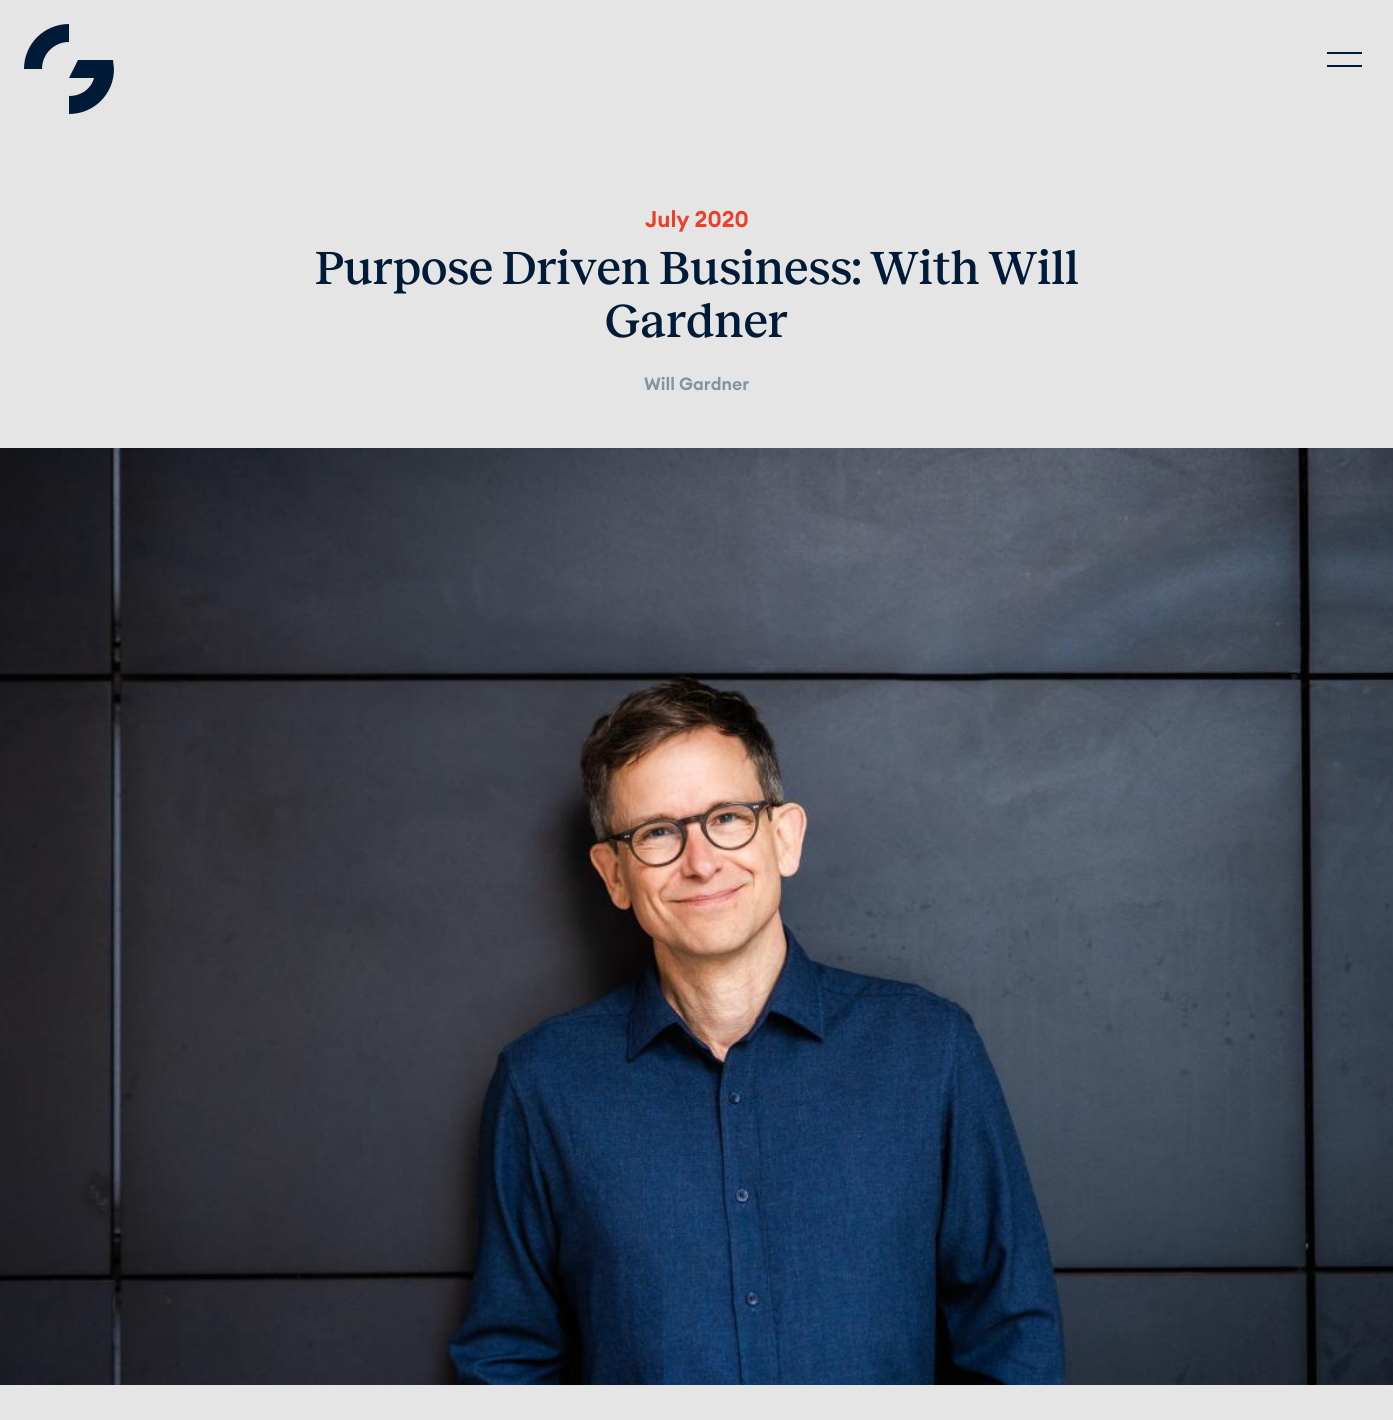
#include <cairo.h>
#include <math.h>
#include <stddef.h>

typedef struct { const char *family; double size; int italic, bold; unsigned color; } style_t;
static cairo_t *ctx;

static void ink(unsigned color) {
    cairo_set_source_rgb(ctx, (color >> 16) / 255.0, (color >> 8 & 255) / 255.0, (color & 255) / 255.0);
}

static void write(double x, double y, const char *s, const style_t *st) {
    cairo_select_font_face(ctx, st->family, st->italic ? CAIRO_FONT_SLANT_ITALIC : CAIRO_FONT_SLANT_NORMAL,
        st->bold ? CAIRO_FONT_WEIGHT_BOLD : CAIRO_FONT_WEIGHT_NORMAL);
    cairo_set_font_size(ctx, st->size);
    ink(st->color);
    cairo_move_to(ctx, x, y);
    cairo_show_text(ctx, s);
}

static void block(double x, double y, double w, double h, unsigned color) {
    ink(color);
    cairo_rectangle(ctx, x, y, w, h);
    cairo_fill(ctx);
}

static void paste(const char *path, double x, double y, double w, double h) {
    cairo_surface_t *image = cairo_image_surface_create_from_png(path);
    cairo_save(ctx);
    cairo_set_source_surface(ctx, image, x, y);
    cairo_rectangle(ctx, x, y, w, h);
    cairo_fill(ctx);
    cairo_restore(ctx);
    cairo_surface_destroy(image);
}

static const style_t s1 = {"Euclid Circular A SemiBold", 22.5, 0, 0, 0xe8412c};
static const style_t s2 = {"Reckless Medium", 48, 0, 0, 0x001b37};
static const style_t s3 = {"Euclid Circular A SemiBold", 17.5, 0, 0, 0x8495a2};

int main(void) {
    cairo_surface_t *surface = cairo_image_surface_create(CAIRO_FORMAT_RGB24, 1393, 1420);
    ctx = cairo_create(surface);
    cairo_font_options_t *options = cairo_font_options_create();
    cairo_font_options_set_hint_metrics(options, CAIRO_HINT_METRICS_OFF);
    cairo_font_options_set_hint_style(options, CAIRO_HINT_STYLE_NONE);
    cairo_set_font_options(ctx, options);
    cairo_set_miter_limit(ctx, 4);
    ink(0xe5e5e5);
    cairo_paint(ctx);
    ink(0x001b37);
    cairo_new_path(ctx);
    cairo_move_to(ctx, 69, 24);
    cairo_curve_to(ctx, 44, 24, 24, 44, 24, 69);
    cairo_line_to(ctx, 42, 69);
    cairo_curve_to(ctx, 42, 54, 54, 42, 69, 42);
    cairo_close_path(ctx);
    cairo_move_to(ctx, 114, 69);
    cairo_curve_to(ctx, 114, 94, 94, 114, 69, 114);
    cairo_line_to(ctx, 69, 96);
    cairo_curve_to(ctx, 81, 96, 91, 89, 94, 78);
    cairo_line_to(ctx, 69, 78);
    cairo_line_to(ctx, 78, 60);
    cairo_line_to(ctx, 113, 60);
    cairo_close_path(ctx);
    cairo_fill(ctx);
    block(1327, 52, 35, 2, 0x001b37);
    block(1327, 65, 35, 2, 0x001b37);
    write(645, 227, "July 2020", &s1);
    write(315, 284, "Purpose Driven Business: With Will", &s2);
    write(605, 337, "Gardner", &s2);
    write(644, 390, "Will Gardner", &s3);
    paste("pic1.png", 0, 448, 1393, 937);
    cairo_surface_write_to_png(surface, "screenshot.png");
    cairo_font_options_destroy(options);
    cairo_destroy(ctx);
    cairo_surface_destroy(surface);
    return 0;
}
